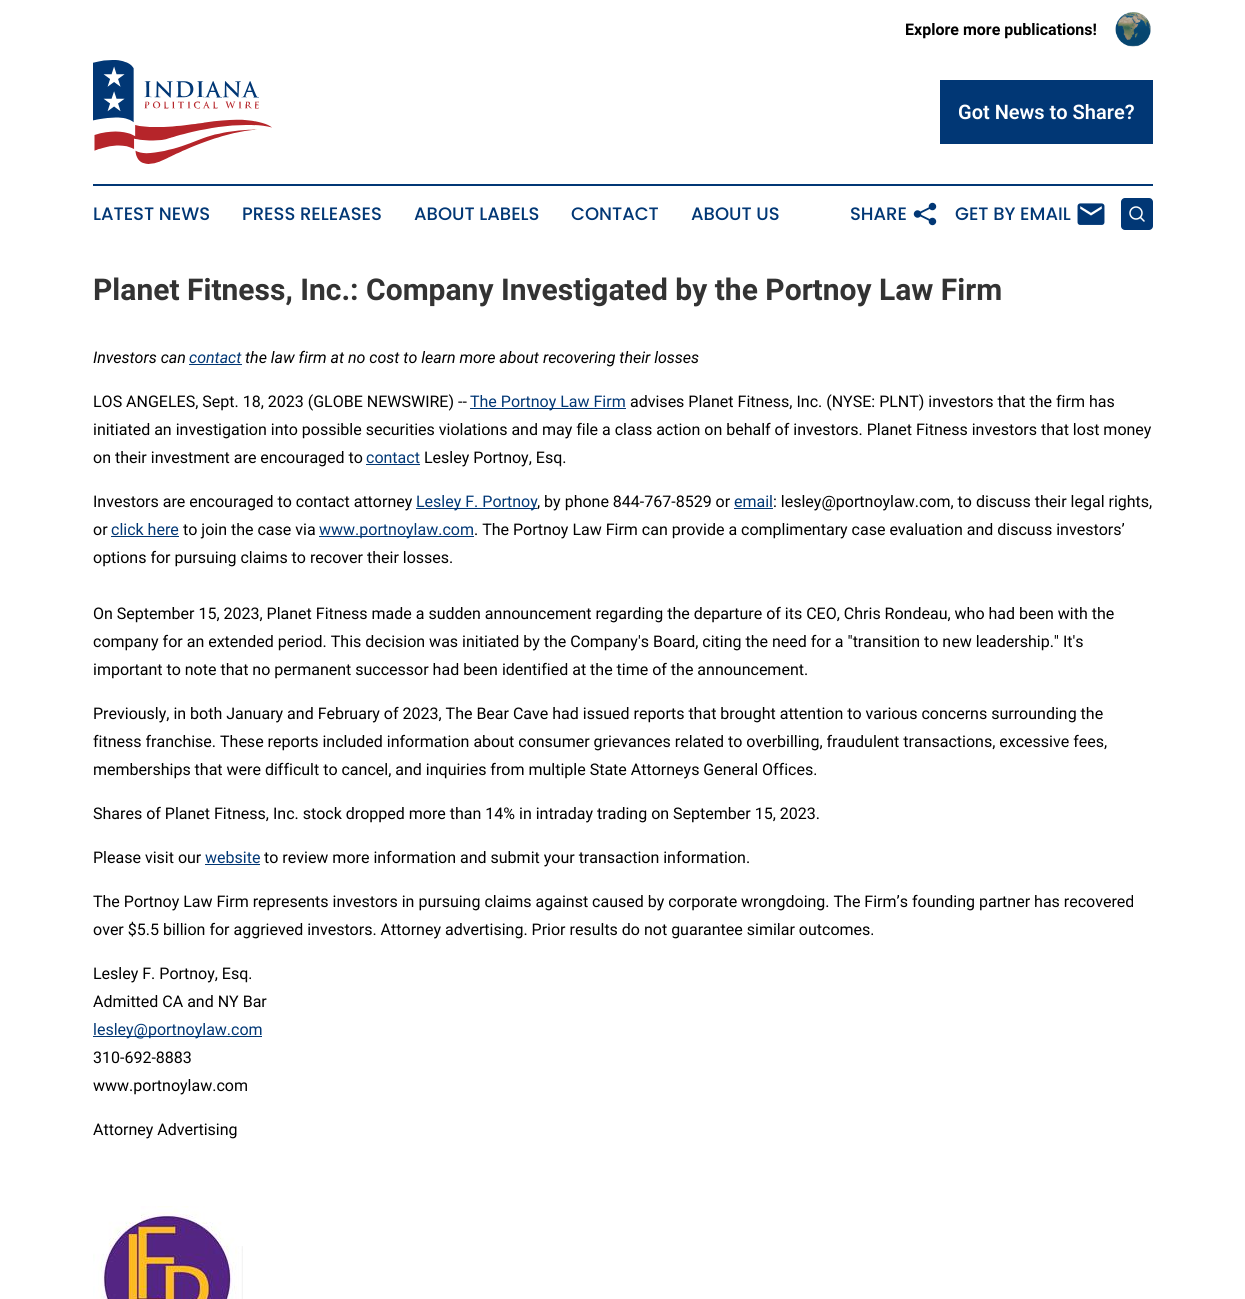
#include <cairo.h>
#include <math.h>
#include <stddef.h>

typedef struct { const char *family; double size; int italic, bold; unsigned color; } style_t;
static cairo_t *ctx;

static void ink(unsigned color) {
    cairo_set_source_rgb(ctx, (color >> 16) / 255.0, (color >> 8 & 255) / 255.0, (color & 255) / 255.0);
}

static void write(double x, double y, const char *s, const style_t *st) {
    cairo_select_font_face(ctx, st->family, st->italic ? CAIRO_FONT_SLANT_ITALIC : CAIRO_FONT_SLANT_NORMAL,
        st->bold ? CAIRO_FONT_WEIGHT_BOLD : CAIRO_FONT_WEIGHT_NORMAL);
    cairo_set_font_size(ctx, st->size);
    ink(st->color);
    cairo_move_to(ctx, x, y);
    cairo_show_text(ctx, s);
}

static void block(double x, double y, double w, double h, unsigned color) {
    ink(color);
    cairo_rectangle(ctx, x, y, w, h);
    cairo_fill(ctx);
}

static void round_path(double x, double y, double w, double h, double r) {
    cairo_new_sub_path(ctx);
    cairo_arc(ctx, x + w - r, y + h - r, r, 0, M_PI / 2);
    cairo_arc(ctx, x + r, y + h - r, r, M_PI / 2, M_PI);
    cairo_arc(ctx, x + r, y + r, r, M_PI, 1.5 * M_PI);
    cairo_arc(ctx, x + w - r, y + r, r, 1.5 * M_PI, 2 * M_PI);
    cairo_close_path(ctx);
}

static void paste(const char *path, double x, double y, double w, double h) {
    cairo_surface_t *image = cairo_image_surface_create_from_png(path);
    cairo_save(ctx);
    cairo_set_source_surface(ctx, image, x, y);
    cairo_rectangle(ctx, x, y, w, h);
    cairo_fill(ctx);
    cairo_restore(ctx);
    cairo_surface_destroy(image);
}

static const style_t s1 = {"Roboto", 16, 0, 1, 0x000000};
static const style_t s2 = {"Roboto SemiBold", 20, 0, 0, 0xffffff};
static const style_t s3 = {"Poppins Medium", 18, 0, 0, 0x013775};
static const style_t s4 = {"Roboto", 30, 0, 1, 0x333333};
static const style_t s5 = {"Roboto", 16, 1, 0, 0x000000};
static const style_t s6 = {"Roboto", 16, 1, 0, 0x013775};
static const style_t s7 = {"Roboto", 16, 0, 0, 0x000000};
static const style_t s8 = {"Roboto", 16, 0, 0, 0x013775};

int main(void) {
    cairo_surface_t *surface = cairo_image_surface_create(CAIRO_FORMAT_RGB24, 1245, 1299);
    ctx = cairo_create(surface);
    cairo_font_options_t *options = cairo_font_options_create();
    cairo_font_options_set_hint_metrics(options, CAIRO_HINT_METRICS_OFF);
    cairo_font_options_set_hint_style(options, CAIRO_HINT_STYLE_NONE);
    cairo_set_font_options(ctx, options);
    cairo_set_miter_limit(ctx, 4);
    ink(0xffffff);
    cairo_paint(ctx);
    write(905, 35, "Explore more publications!", &s1);
    paste("pic1.png", 1115, 12, 36, 35);
    paste("pic2.png", 93, 60, 179, 104);
    block(940, 80, 213, 64, 0x013775);
    write(958, 119, "Got News to Share?", &s2);
    block(93, 184, 1060, 2, 0x013775);
    write(93, 220, "LATEST NEWS", &s3);
    write(242, 220, "PRESS RELEASES", &s3);
    write(414, 220, "ABOUT LABELS", &s3);
    write(571, 220, "CONTACT", &s3);
    write(691, 220, "ABOUT US", &s3);
    write(850, 220, "SHARE", &s3);
    paste("pic3.png", 913, 202, 24, 24);
    write(955, 220, "GET BY EMAIL", &s3);
    paste("pic4.png", 1077, 203, 28, 22);
    round_path(1121, 198, 32, 32, 4);
    cairo_fill(ctx);
    cairo_arc(ctx, 1136, 213, 6, 0, 2 * M_PI);
    ink(0xffffff);
    cairo_set_line_width(ctx, 1.5);
    cairo_stroke(ctx);
    cairo_new_path(ctx);
    cairo_move_to(ctx, 1144, 221);
    cairo_line_to(ctx, 1140.5, 217.5);
    cairo_set_line_cap(ctx, CAIRO_LINE_CAP_ROUND);
    cairo_set_line_join(ctx, CAIRO_LINE_JOIN_ROUND);
    cairo_stroke(ctx);
    write(93, 300, "Planet Fitness, Inc.: Company Investigated by the Portnoy Law Firm", &s4);
    write(93, 363, "Investors can", &s5);
    write(189, 363, "contact", &s6);
    block(189, 364, 53, 1, 0x013775);
    write(245, 363, "the law firm at no cost to learn more about recovering their losses", &s5);
    write(93, 407, "LOS ANGELES, Sept. 18, 2023 (GLOBE NEWSWIRE) --", &s7);
    block(470, 408, 156, 1, 0x013775);
    write(470, 407, "The Portnoy Law Firm", &s8);
    write(630, 407, "advises Planet Fitness, Inc. (NYSE: PLNT) investors that the firm has", &s7);
    write(93, 435, "initiated an investigation into possible securities violations and may file a class action on behalf of investors. Planet Fitness investors that lost money", &s7);
    write(93, 463, "on their investment are encouraged to", &s7);
    write(366, 463, "contact", &s8);
    block(366, 464, 54, 1, 0x013775);
    write(424, 463, "Lesley Portnoy, Esq.", &s7);
    write(93, 507, "Investors are encouraged to contact attorney", &s7);
    block(416, 508, 121, 1, 0x013775);
    write(416, 507, "Lesley F. Portnoy", &s8);
    write(537, 507, ", by phone 844-767-8529 or", &s7);
    write(734, 507, "email", &s8);
    block(734, 508, 39, 1, 0x013775);
    write(773, 507, ": lesley@portnoylaw.com, to discuss their legal rights,", &s7);
    write(93, 535, "or", &s7);
    write(111, 535, "click here", &s8);
    block(111, 536, 68, 1, 0x013775);
    write(183, 535, "to join the case via", &s7);
    block(319, 536, 155, 1, 0x013775);
    write(319, 535, "www.portnoylaw.com", &s8);
    write(474, 535, ". The Portnoy Law Firm can provide a complimentary case evaluation and discuss investors’", &s7);
    write(93, 563, "options for pursuing claims to recover their losses.", &s7);
    write(93, 619, "On September 15, 2023, Planet Fitness made a sudden announcement regarding the departure of its CEO, Chris Rondeau, who had been with the", &s7);
    write(93, 647, "company for an extended period. This decision was initiated by the Company's Board, citing the need for a \"transition to new leadership.\" It's", &s7);
    write(93, 675, "important to note that no permanent successor had been identified at the time of the announcement.", &s7);
    write(93, 719, "Previously, in both January and February of 2023, The Bear Cave had issued reports that brought attention to various concerns surrounding the", &s7);
    write(93, 747, "fitness franchise. These reports included information about consumer grievances related to overbilling, fraudulent transactions, excessive fees,", &s7);
    write(93, 775, "memberships that were difficult to cancel, and inquiries from multiple State Attorneys General Offices.", &s7);
    write(93, 819, "Shares of Planet Fitness, Inc. stock dropped more than 14% in intraday trading on September 15, 2023.", &s7);
    write(93, 863, "Please visit our", &s7);
    write(205, 863, "website", &s8);
    block(205, 864, 55, 1, 0x013775);
    write(264, 863, "to review more information and submit your transaction information.", &s7);
    write(93, 907, "The Portnoy Law Firm represents investors in pursuing claims against caused by corporate wrongdoing. The Firm’s founding partner has recovered", &s7);
    write(93, 935, "over $5.5 billion for aggrieved investors. Attorney advertising. Prior results do not guarantee similar outcomes.", &s7);
    write(93, 979, "Lesley F. Portnoy, Esq.", &s7);
    write(93, 1007, "Admitted CA and NY Bar", &s7);
    block(93, 1036, 169, 1, 0x013775);
    write(93, 1035, "lesley@portnoylaw.com", &s8);
    write(93, 1063, "310-692-8883", &s7);
    write(93, 1091, "www.portnoylaw.com", &s7);
    write(93, 1135, "Attorney Advertising", &s7);
    paste("pic5.png", 93, 1206, 150, 93);
    cairo_surface_write_to_png(surface, "screenshot.png");
    cairo_font_options_destroy(options);
    cairo_destroy(ctx);
    cairo_surface_destroy(surface);
    return 0;
}
